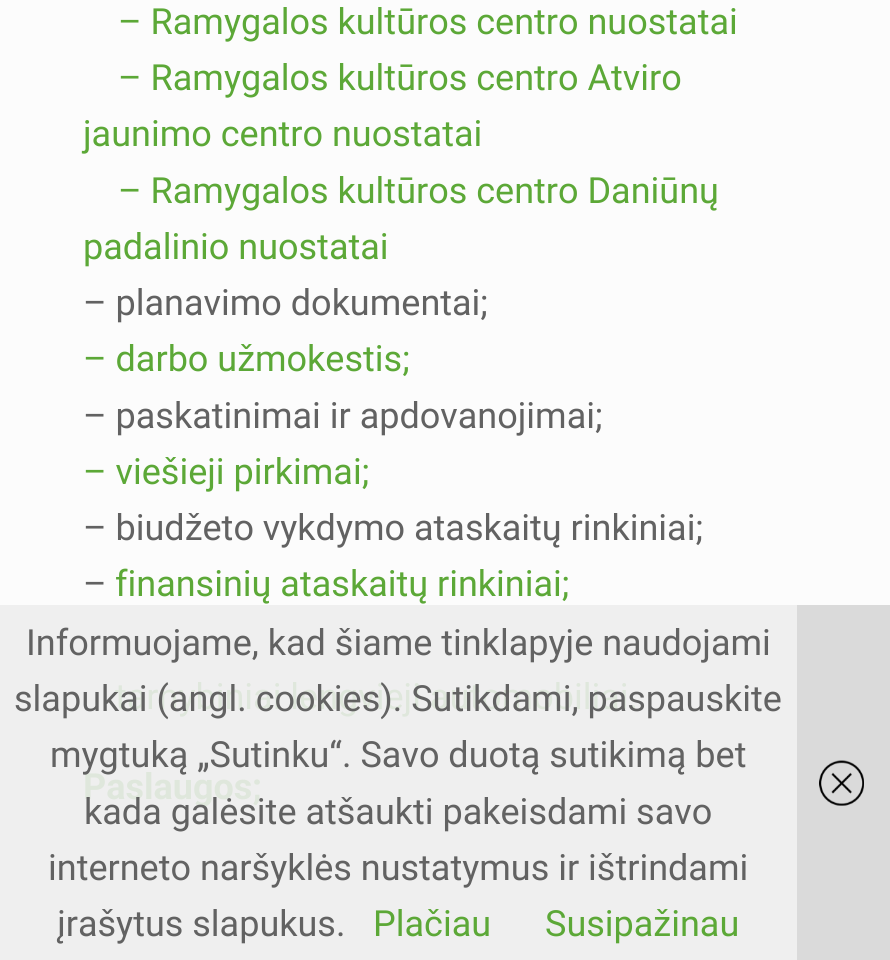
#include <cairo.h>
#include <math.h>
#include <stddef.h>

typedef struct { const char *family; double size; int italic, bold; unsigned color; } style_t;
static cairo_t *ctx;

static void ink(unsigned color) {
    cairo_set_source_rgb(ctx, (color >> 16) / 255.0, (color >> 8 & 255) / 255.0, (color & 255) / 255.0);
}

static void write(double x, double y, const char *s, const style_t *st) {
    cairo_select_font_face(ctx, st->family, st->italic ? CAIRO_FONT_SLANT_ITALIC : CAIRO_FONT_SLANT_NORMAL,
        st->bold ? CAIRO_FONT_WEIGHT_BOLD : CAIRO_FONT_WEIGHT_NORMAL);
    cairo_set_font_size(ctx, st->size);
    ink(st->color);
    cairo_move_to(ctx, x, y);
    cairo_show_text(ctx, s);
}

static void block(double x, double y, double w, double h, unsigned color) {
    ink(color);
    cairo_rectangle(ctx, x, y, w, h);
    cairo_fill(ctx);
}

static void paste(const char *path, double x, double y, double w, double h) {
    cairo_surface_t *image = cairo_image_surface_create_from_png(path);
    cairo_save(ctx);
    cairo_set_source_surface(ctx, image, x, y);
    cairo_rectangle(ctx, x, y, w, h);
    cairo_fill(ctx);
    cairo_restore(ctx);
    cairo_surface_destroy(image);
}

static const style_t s1 = {"Roboto", 36, 0, 0, 0x5ca837};
static const style_t s2 = {"Roboto", 36, 0, 0, 0x626262};
static const style_t s3 = {"Roboto", 36, 0, 0, 0xdfe7dc};
static const style_t s4 = {"Roboto", 36, 0, 1, 0xdfe7dc};

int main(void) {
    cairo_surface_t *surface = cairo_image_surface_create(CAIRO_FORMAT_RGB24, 890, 960);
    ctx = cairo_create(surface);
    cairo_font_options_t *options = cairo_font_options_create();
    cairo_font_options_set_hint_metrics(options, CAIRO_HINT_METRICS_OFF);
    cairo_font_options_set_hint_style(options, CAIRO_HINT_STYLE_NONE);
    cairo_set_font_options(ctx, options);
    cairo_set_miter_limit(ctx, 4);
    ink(0xfcfcfc);
    cairo_paint(ctx);
    block(0, 605, 797, 355, 0xefefef);
    write(118, 34, "– Ramygalos kultūros centro nuostatai", &s1);
    write(118, 90, "– Ramygalos kultūros centro Atviro", &s1);
    write(83, 146, "jaunimo centro nuostatai", &s1);
    write(118, 203, "– Ramygalos kultūros centro Daniūnų", &s1);
    write(83, 259, "padalinio nuostatai", &s1);
    write(83, 315, "– planavimo dokumentai;", &s2);
    write(83, 371, "– darbo užmokestis;", &s1);
    write(83, 428, "– paskatinimai ir apdovanojimai;", &s2);
    write(83, 484, "– viešieji pirkimai;", &s1);
    write(83, 540, "– biudžeto vykdymo ataskaitų rinkiniai;", &s2);
    write(83, 596, "–", &s2);
    write(115, 596, "finansinių ataskaitų rinkiniai;", &s1);
    write(115, 709, "tarnybiniai lengvieji automobiliai.", &s3);
    write(83, 799, "Paslaugos;", &s4);
    write(26, 655, "Informuojame, kad šiame tinklapyje naudojami", &s2);
    write(14, 711, "slapukai (angl. cookies). Sutikdami, paspauskite", &s2);
    write(50, 767, "mygtuką „Sutinku“. Savo duotą sutikimą bet", &s2);
    write(84, 824, "kada galėsite atšaukti pakeisdami savo", &s2);
    write(48, 880, "interneto naršyklės nustatymus ir ištrindami", &s2);
    write(57, 936, "įrašytus slapukus.", &s2);
    write(373, 936, "Plačiau", &s1);
    write(545, 936, "Susipažinau", &s1);
    block(797, 605, 93, 355, 0xdadada);
    paste("pic1.png", 819, 760, 45, 46);
    cairo_surface_write_to_png(surface, "screenshot.png");
    cairo_font_options_destroy(options);
    cairo_destroy(ctx);
    cairo_surface_destroy(surface);
    return 0;
}
